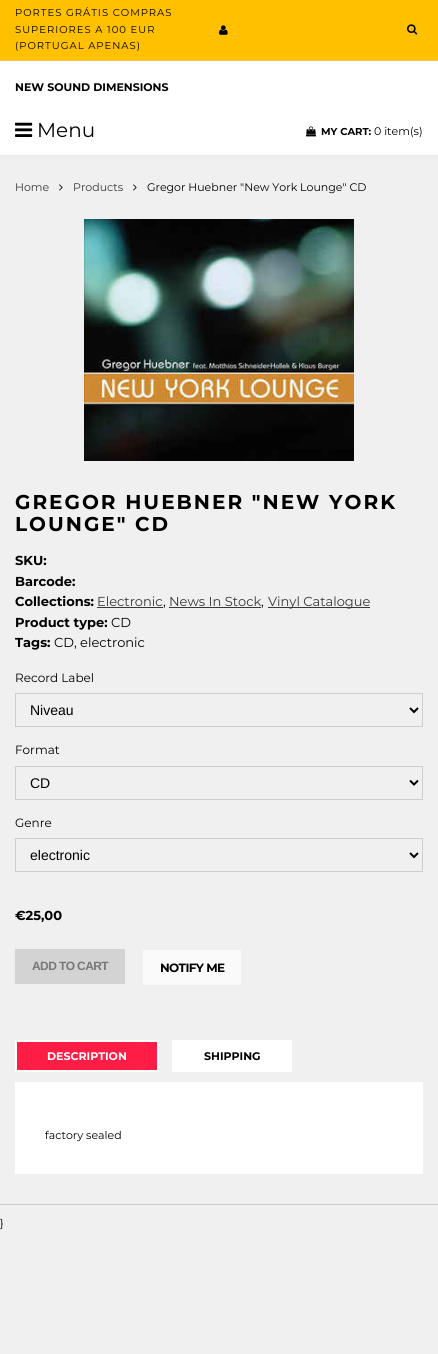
#include <cairo.h>
#include <math.h>
#include <stddef.h>

typedef struct { const char *family; double size; int italic, bold; unsigned color; } style_t;
static cairo_t *ctx;

static void ink(unsigned color) {
    cairo_set_source_rgb(ctx, (color >> 16) / 255.0, (color >> 8 & 255) / 255.0, (color & 255) / 255.0);
}

static void write(double x, double y, const char *s, const style_t *st) {
    cairo_select_font_face(ctx, st->family, st->italic ? CAIRO_FONT_SLANT_ITALIC : CAIRO_FONT_SLANT_NORMAL,
        st->bold ? CAIRO_FONT_WEIGHT_BOLD : CAIRO_FONT_WEIGHT_NORMAL);
    cairo_set_font_size(ctx, st->size);
    ink(st->color);
    cairo_move_to(ctx, x, y);
    cairo_show_text(ctx, s);
}

static void write_spaced(double x, double y, const char *s, double letter, double word) {
    cairo_move_to(ctx, x, y);
    while (*s) {
        char ch[5] = {0};
        int n = 0;
        do ch[n++] = *s++; while ((*s & 0xC0) == 0x80);
        cairo_show_text(ctx, ch);
        cairo_rel_move_to(ctx, letter + word * (*ch == ' '), 0);
    }
}

static void block(double x, double y, double w, double h, unsigned color) {
    ink(color);
    cairo_rectangle(ctx, x, y, w, h);
    cairo_fill(ctx);
}

static void round_path(double x, double y, double w, double h, double r) {
    cairo_new_sub_path(ctx);
    cairo_arc(ctx, x + w - r, y + h - r, r, 0, M_PI / 2);
    cairo_arc(ctx, x + r, y + h - r, r, M_PI / 2, M_PI);
    cairo_arc(ctx, x + r, y + r, r, M_PI, 1.5 * M_PI);
    cairo_arc(ctx, x + w - r, y + r, r, 1.5 * M_PI, 2 * M_PI);
    cairo_close_path(ctx);
}

static void blur_box(double x, double y, double w, double h, double r, double blur, double alpha) {
    cairo_push_group_with_content(ctx, CAIRO_CONTENT_ALPHA);
    cairo_set_operator(ctx, CAIRO_OPERATOR_SOURCE);
    for (int i = 15; i >= -15 && fmin(w, h) + blur * i / 3 > 0; i -= 2) {
        double e = blur * i / 6;
        cairo_set_source_rgba(ctx, 0, 0, 0, alpha * erfc((i - 1) / 8.5) / 2);
        round_path(x - e, y - e, w + 2 * e, h + 2 * e, fmax(0, fmin(r + e + blur * .6, fmin(w, h) / 2 + e)));
        cairo_fill(ctx);
    }
    cairo_pattern_t *soft = cairo_pop_group(ctx);
    cairo_mask(ctx, soft);
    cairo_pattern_destroy(soft);
}

static void paste(const char *path, double x, double y, double w, double h) {
    cairo_surface_t *image = cairo_image_surface_create_from_png(path);
    cairo_save(ctx);
    cairo_set_source_surface(ctx, image, x, y);
    cairo_rectangle(ctx, x, y, w, h);
    cairo_fill(ctx);
    cairo_restore(ctx);
    cairo_surface_destroy(image);
}

static const style_t s1 = {"Montserrat", 11, 0, 1, 0x000000};
static const style_t s2 = {"Montserrat", 20, 0, 0, 0x000000};
static const style_t s3 = {"Montserrat", 10, 0, 1, 0x000000};
static const style_t s4 = {"Montserrat", 11, 0, 0, 0x000000};
static const style_t s5 = {"Montserrat", 11, 0, 0, 0x383838};
static const style_t s6 = {"Montserrat", 13, 0, 1, 0x000000};
static const style_t s7 = {"Montserrat", 13, 0, 0, 0x383838};
static const style_t s8 = {"Montserrat", 13, 0, 0, 0x000000};
static const style_t s9 = {"Montserrat", 12, 0, 0, 0x000000};
static const style_t s10 = {"Liberation Sans", 14, 0, 0, 0x000000};
static const style_t s11 = {"Montserrat", 11, 0, 1, 0xffffff};

int main(void) {
    cairo_surface_t *surface = cairo_image_surface_create(CAIRO_FORMAT_RGB24, 438, 1354);
    ctx = cairo_create(surface);
    cairo_font_options_t *options = cairo_font_options_create();
    cairo_font_options_set_hint_metrics(options, CAIRO_HINT_METRICS_OFF);
    cairo_font_options_set_hint_style(options, CAIRO_HINT_STYLE_NONE);
    cairo_set_font_options(ctx, options);
    cairo_set_miter_limit(ctx, 4);
    ink(0xf0f0f0);
    cairo_paint(ctx);
    ink(0x000000);
    blur_box(0, 0, 438, 155, 0, 2.5, 0.05);
    block(0, 0, 438, 60, 0xffc000);
    block(0, 60, 438, 1, 0xebc552);
    cairo_select_font_face(ctx, "Montserrat", CAIRO_FONT_SLANT_NORMAL, CAIRO_FONT_WEIGHT_NORMAL);
    cairo_set_font_size(ctx, 10);
    ink(0x000000);
    write_spaced(15, 16, "PORTES GRÁTIS COMPRAS", 1, 0);
    write_spaced(15, 33, "SUPERIORES A 100 EUR", 1, 0);
    write_spaced(15, 49, "(PORTUGAL APENAS)", 1, 0);
    paste("pic1.png", 219, 25, 9, 10);
    paste("pic2.png", 407, 24, 11, 11);
    block(0, 61, 438, 94, 0xffffff);
    write(15, 91, "NEW SOUND DIMENSIONS", &s1);
    paste("pic3.png", 15, 122, 18, 15);
    write(37, 137, "Menu", &s2);
    paste("pic4.png", 306, 126, 10, 11);
    write(321, 135, "MY CART:", &s3);
    write(374, 135, "0 item(s)", &s4);
    write(15, 191, "Home", &s5);
    paste("pic5.png", 59, 184, 4, 7);
    write(73, 191, "Products", &s5);
    paste("pic5.png", 133, 184, 4, 7);
    write(147, 191, "Gregor Huebner \"New York Lounge\" CD", &s4);
    paste("pic6.png", 84, 219, 270, 242);
    cairo_select_font_face(ctx, "Montserrat", CAIRO_FONT_SLANT_NORMAL, CAIRO_FONT_WEIGHT_BOLD);
    cairo_set_font_size(ctx, 20);
    write_spaced(15, 509, "GREGOR HUEBNER \"NEW YORK", 2, 0);
    write_spaced(15, 531, "LOUNGE\" CD", 2, 0);
    write(15, 565, "SKU:", &s6);
    write(15, 586, "Barcode:", &s6);
    write(15, 606, "Collections:", &s6);
    write(97, 606, "Electronic", &s7);
    block(97, 607, 66, 1, 0x383838);
    write(163, 606, ",", &s8);
    write(169, 606, "News In Stock", &s7);
    block(169, 607, 92, 1, 0x383838);
    write(261, 606, ",", &s8);
    block(268, 607, 102, 1, 0x383838);
    write(268, 606, "Vinyl Catalogue", &s7);
    write(15, 627, "Product type:", &s6);
    write(111, 627, "CD", &s8);
    write(15, 647, "Tags:", &s6);
    write(54, 647, "CD, electronic", &s8);
    write(15, 682, "Record Label", &s9);
    cairo_rectangle(ctx, 15.5, 693.5, 407, 33);
    ink(0xcecccc);
    cairo_set_line_width(ctx, 1);
    cairo_stroke(ctx);
    cairo_new_path(ctx);
    cairo_move_to(ctx, 410, 708);
    cairo_line_to(ctx, 414, 712);
    cairo_line_to(ctx, 418, 708);
    ink(0x000000);
    cairo_set_line_width(ctx, 2);
    cairo_stroke(ctx);
    write(30, 715, "Niveau", &s10);
    write(15, 754, "Format", &s9);
    cairo_rectangle(ctx, 15.5, 766.5, 407, 33);
    ink(0xcecccc);
    cairo_set_line_width(ctx, 1);
    cairo_stroke(ctx);
    cairo_new_path(ctx);
    cairo_move_to(ctx, 410, 780.5);
    cairo_line_to(ctx, 414, 784.5);
    cairo_line_to(ctx, 418, 780.5);
    ink(0x000000);
    cairo_set_line_width(ctx, 2);
    cairo_stroke(ctx);
    write(30, 788, "CD", &s10);
    write(15, 827, "Genre", &s9);
    cairo_rectangle(ctx, 15.5, 838.5, 407, 33);
    ink(0xcecccc);
    cairo_set_line_width(ctx, 1);
    cairo_stroke(ctx);
    cairo_new_path(ctx);
    cairo_move_to(ctx, 410, 853);
    cairo_line_to(ctx, 414, 857);
    cairo_line_to(ctx, 418, 853);
    ink(0x000000);
    cairo_set_line_width(ctx, 2);
    cairo_stroke(ctx);
    write(30, 860, "electronic", &s10);
    write(15, 920, "€25,00", &s6);
    block(15, 949, 110, 35, 0xd3d3d3);
    cairo_select_font_face(ctx, "Liberation Sans", CAIRO_FONT_SLANT_NORMAL, CAIRO_FONT_WEIGHT_BOLD);
    cairo_set_font_size(ctx, 12);
    ink(0x767676);
    write_spaced(32, 970, "ADD TO CART", -0.6, 0);
    block(143, 950, 98, 35, 0xfafafa);
    cairo_select_font_face(ctx, "Montserrat", CAIRO_FONT_SLANT_NORMAL, CAIRO_FONT_WEIGHT_BOLD);
    ink(0x000000);
    write_spaced(160, 972, "NOTIFY ME", -0.6, 0);
    ink(0xff1d46);
    cairo_rectangle(ctx, 16, 1041, 142, 30);
    cairo_fill_preserve(ctx);
    ink(0xffffff);
    cairo_stroke(ctx);
    write(47, 1060, "DESCRIPTION", &s11);
    block(172, 1040, 120, 32, 0xffffff);
    write(204, 1060, "SHIPPING", &s1);
    block(15, 1082, 408, 92, 0xffffff);
    write(45, 1139, "factory sealed", &s4);
    block(0, 1204, 438, 1, 0xcecccc);
    write(0, 1227, "}", &s4);
    cairo_surface_write_to_png(surface, "screenshot.png");
    cairo_font_options_destroy(options);
    cairo_destroy(ctx);
    cairo_surface_destroy(surface);
    return 0;
}
